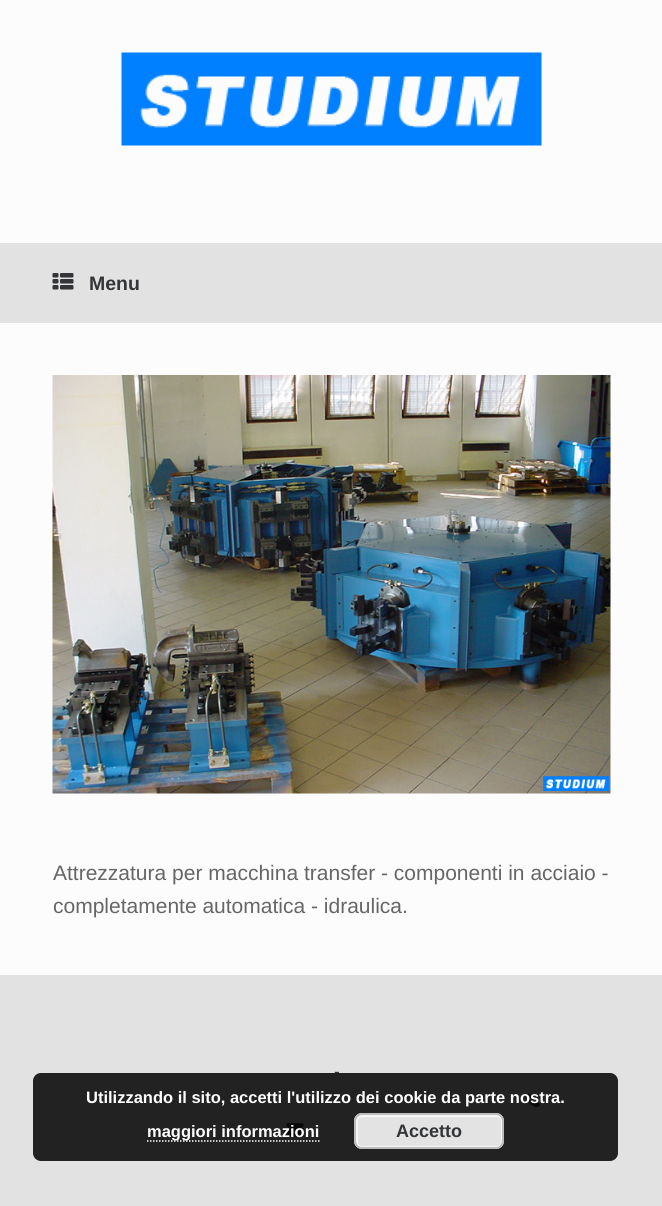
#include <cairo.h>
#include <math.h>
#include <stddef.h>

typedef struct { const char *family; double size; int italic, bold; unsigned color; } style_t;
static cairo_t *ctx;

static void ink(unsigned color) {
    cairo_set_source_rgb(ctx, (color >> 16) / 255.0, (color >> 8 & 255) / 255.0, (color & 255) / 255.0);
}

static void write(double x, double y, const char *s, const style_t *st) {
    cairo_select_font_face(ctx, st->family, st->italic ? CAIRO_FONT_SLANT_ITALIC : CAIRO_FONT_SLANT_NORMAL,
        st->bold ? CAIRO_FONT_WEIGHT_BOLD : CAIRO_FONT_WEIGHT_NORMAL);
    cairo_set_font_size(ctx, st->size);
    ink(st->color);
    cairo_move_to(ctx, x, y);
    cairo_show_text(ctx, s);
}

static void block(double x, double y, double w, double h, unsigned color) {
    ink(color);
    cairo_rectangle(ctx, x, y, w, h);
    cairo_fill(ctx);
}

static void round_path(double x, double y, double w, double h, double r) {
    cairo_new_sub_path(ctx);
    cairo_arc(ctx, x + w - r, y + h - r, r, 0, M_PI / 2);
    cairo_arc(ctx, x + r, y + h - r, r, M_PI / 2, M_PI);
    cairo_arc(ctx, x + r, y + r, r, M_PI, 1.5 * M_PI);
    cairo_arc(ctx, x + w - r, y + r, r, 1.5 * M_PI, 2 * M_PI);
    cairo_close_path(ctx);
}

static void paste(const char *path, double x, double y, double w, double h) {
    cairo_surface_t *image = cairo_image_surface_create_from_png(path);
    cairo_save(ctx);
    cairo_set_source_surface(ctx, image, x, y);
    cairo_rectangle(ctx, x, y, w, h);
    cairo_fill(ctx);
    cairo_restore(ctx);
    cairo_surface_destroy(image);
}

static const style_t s1 = {"Liberation Sans", 19.5, 0, 1, 0x343538};
static const style_t s2 = {"Liberation Sans", 21, 0, 0, 0x666666};
static const style_t s3 = {"Liberation Sans", 17, 0, 0, 0x343538};
static const style_t s4 = {"Liberation Sans", 16.5, 0, 1, 0xffffff};
static const style_t s5 = {"Liberation Sans", 18, 0, 1, 0x343538};

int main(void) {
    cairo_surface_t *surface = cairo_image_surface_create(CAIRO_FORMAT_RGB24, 662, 1206);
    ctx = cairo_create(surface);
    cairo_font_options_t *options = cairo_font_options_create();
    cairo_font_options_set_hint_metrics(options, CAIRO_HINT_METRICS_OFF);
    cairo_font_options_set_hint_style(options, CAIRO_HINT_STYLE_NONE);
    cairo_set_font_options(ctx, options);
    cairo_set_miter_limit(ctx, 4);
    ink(0xe2e2e2);
    cairo_paint(ctx);
    block(0, 0, 662, 243, 0xfcfcfc);
    paste("pic1.png", 121, 52, 421, 94);
    paste("pic2.png", 52, 273, 22, 17);
    write(89, 290, "Menu", &s1);
    block(0, 323, 662, 652, 0xfcfcfc);
    paste("pic3.png", 52, 375, 559, 419);
    write(53, 880, "Attrezzatura per macchina transfer - componenti in acciaio -", &s2);
    write(53, 913, "completamente automatica - idraulica.", &s2);
    write(334, 1077, "-", &s3);
    paste("pic4.png", 526, 1093, 14, 14);
    paste("pic5.png", 286, 1123, 18, 14);
    cairo_set_source_rgba(ctx, 0, 0, 0, 0.85);
    round_path(33, 1073, 585, 88, 8);
    cairo_fill(ctx);
    write(86, 1103, "Utilizzando il sito, accetti l'utilizzo dei cookie da parte nostra.", &s4);
    cairo_new_path(ctx);
    cairo_move_to(ctx, 147, 1141);
    cairo_line_to(ctx, 319.5, 1141);
    cairo_set_line_width(ctx, 1.5);
    cairo_set_dash(ctx, (double[]){1.5, 1.5}, 2, 0);
    cairo_stroke(ctx);
    write(147, 1137, "maggiori informazioni", &s4);
    ink(0xe3e3e3);
    round_path(354, 1113, 150, 36, 8);
    cairo_fill(ctx);
    round_path(357, 1116, 145, 31, 5);
    ink(0xf6f6f6);
    cairo_set_line_width(ctx, 2);
    cairo_set_dash(ctx, NULL, 0, 0);
    cairo_stroke(ctx);
    round_path(355, 1114, 148, 34, 7);
    ink(0xbbbbbb);
    cairo_stroke(ctx);
    write(396, 1137, "Accetto", &s5);
    cairo_surface_write_to_png(surface, "screenshot.png");
    cairo_font_options_destroy(options);
    cairo_destroy(ctx);
    cairo_surface_destroy(surface);
    return 0;
}
